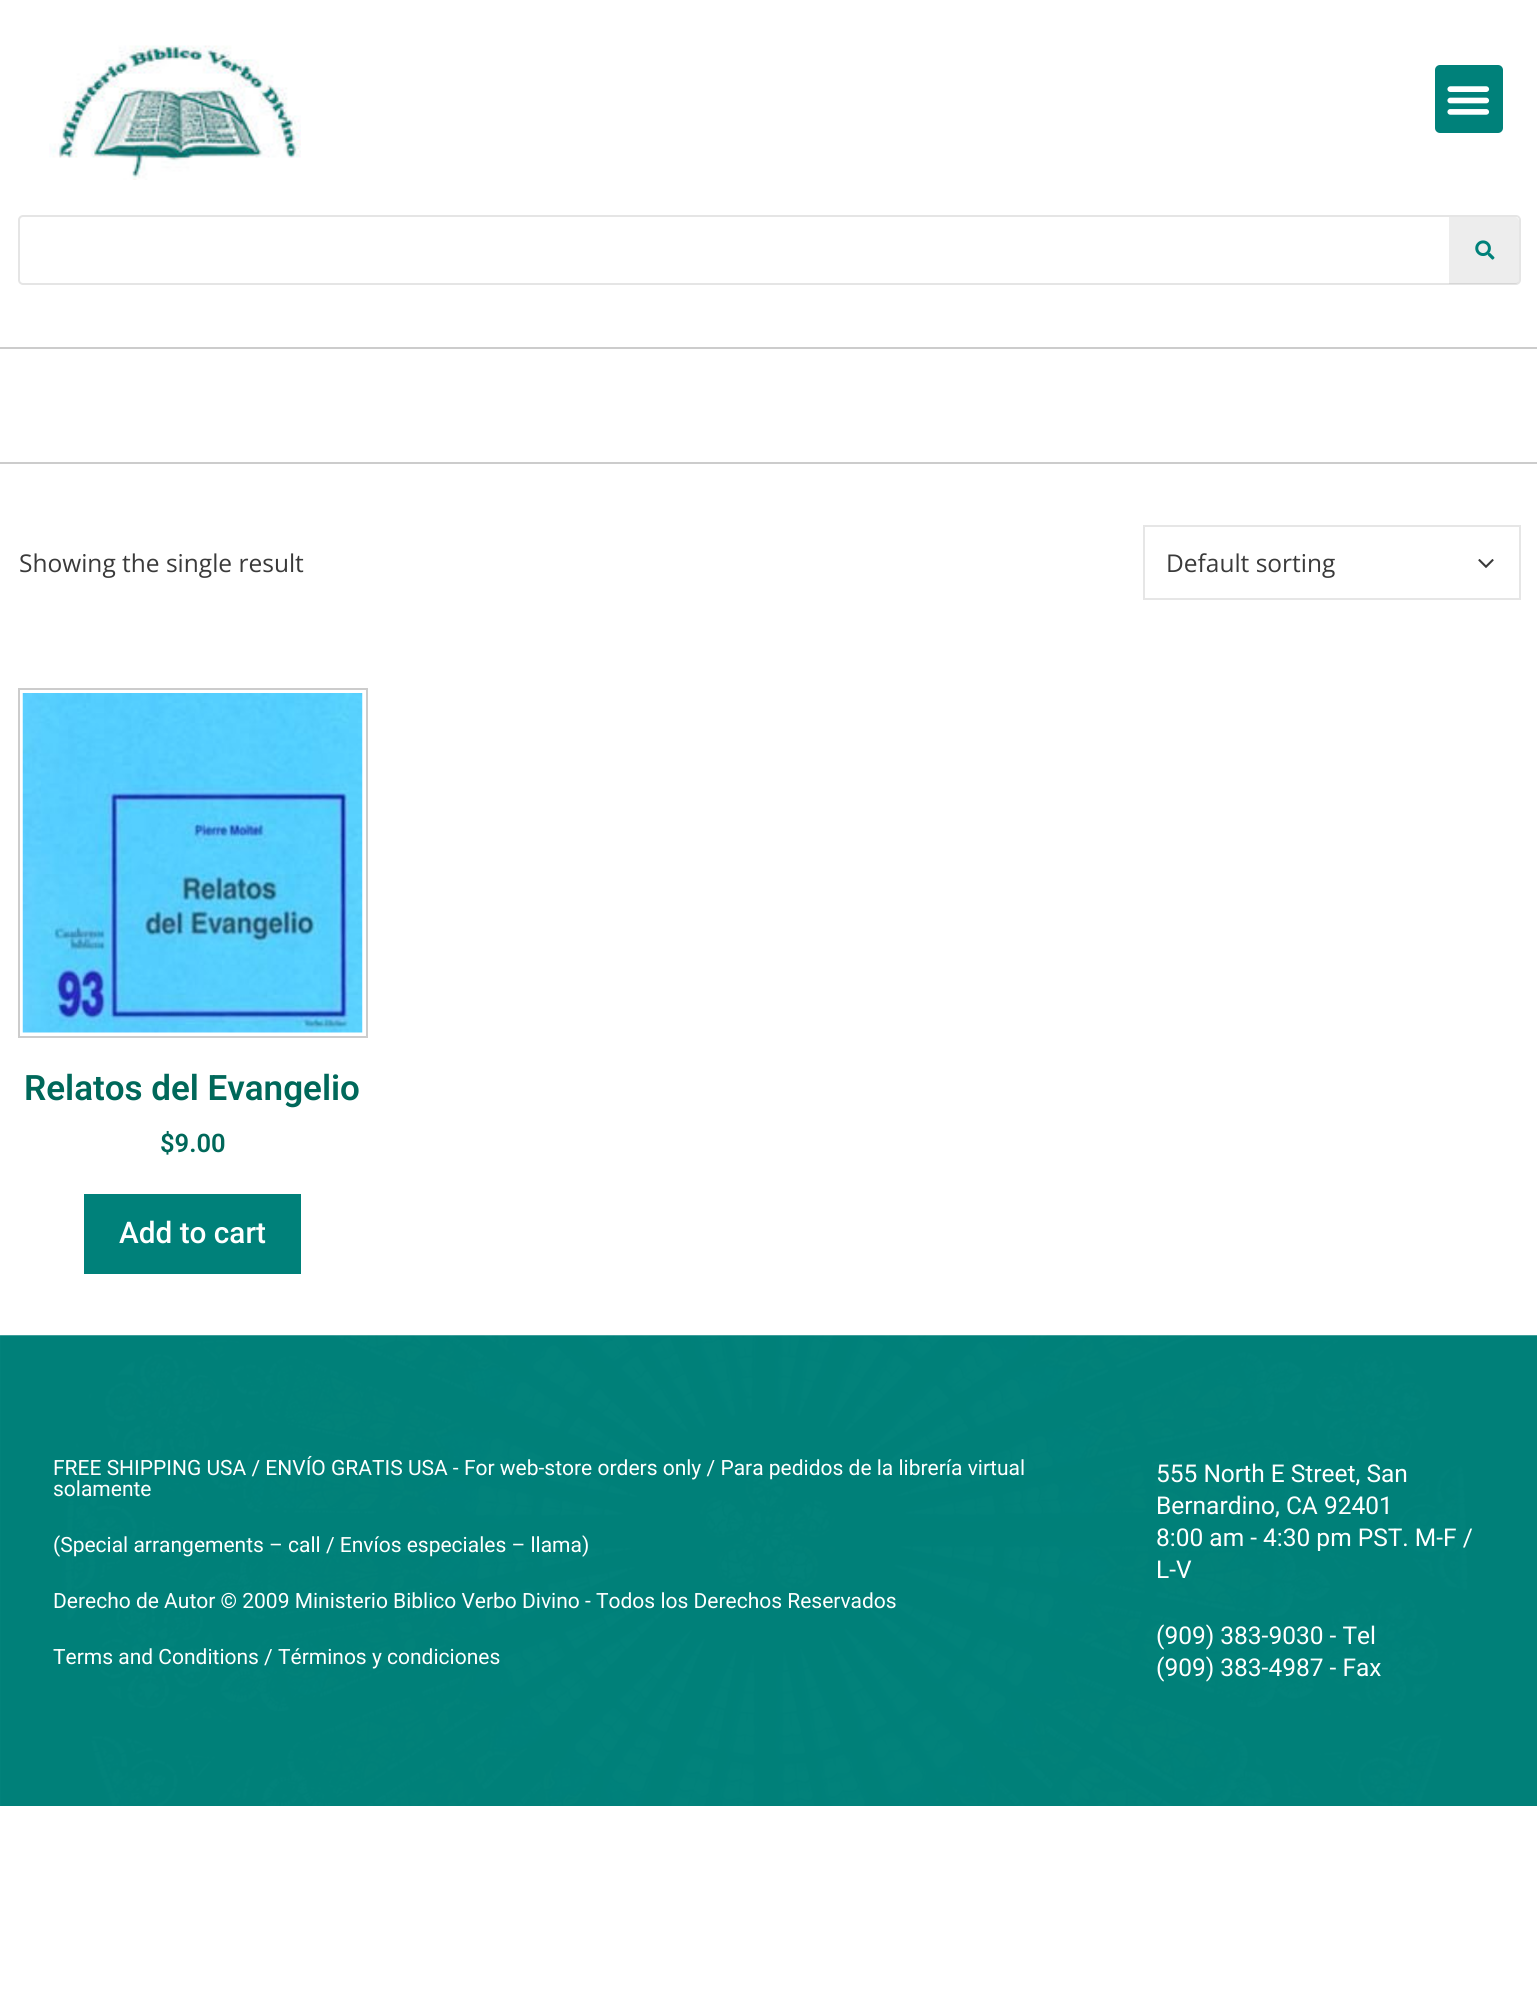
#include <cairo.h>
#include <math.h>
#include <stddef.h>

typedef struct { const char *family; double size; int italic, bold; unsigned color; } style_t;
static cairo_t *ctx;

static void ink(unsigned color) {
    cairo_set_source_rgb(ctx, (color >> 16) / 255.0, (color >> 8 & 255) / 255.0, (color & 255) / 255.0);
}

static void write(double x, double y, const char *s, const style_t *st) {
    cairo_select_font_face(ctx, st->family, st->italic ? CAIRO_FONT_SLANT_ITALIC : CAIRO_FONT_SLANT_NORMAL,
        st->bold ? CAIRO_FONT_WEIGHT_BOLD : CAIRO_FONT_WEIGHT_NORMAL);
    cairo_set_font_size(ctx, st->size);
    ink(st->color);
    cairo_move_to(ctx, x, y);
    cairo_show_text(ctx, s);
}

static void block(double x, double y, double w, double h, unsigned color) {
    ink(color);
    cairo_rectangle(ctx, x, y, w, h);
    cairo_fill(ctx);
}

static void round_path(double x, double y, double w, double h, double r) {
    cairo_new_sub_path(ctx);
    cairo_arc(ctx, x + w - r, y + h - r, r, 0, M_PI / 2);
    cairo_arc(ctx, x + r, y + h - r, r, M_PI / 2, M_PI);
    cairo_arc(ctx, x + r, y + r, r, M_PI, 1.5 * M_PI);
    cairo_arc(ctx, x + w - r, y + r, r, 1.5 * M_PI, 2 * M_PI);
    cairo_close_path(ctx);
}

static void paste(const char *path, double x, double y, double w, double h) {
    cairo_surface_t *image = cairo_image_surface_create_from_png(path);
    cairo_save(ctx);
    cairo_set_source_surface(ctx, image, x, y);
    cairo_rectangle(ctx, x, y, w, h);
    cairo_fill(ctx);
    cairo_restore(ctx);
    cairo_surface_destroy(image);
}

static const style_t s1 = {"Open Sans", 24.5, 0, 0, 0x3a3a3a};
static const style_t s2 = {"Roboto SemiBold", 35, 0, 0, 0x00685a};
static const style_t s3 = {"Roboto SemiBold", 25.5, 0, 0, 0x00685a};
static const style_t s4 = {"Roboto Medium", 29.75, 0, 0, 0xffffff};
static const style_t s5 = {"Roboto", 21, 0, 0, 0xffffff};
static const style_t s6 = {"Roboto", 24.5, 0, 0, 0xffffff};

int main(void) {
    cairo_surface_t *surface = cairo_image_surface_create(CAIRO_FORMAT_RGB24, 1537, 2004);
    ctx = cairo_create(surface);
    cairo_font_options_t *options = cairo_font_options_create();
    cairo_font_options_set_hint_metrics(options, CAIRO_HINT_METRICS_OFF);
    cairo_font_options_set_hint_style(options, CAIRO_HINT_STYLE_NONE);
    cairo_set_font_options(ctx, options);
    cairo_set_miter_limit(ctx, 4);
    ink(0xffffff);
    cairo_paint(ctx);
    paste("pic1.png", 49, 45, 252, 135);
    ink(0x00817a);
    round_path(1435, 65, 68, 68, 5);
    cairo_fill(ctx);
    paste("pic2.png", 1447, 86, 43, 29);
    round_path(19, 216, 1501, 68, 4);
    ink(0xe5e5e5);
    cairo_stroke(ctx);
    cairo_set_source_rgba(ctx, 0.478, 0.478, 0.478, 0.13);
    cairo_new_path(ctx);
    cairo_move_to(ctx, 1449, 217);
    cairo_line_to(ctx, 1515, 217);
    cairo_curve_to(ctx, 1517, 217, 1519, 219, 1519, 221);
    cairo_line_to(ctx, 1519, 280);
    cairo_curve_to(ctx, 1519, 282, 1517, 284, 1515, 284);
    cairo_line_to(ctx, 1449, 284);
    cairo_close_path(ctx);
    cairo_fill(ctx);
    paste("pic3.png", 1475, 240, 20, 20);
    block(0, 347, 1537, 2, 0xcccccc);
    block(0, 462, 1537, 2, 0xcccccc);
    write(19, 572, "Showing the single result", &s1);
    cairo_rectangle(ctx, 1144, 526, 376, 73);
    ink(0xe6e6e6);
    cairo_stroke(ctx);
    write(1166, 572, "Default sorting", &s1);
    paste("pic4.png", 1478, 559, 16, 9);
    cairo_rectangle(ctx, 19, 689, 348, 348);
    ink(0xcccccc);
    cairo_stroke(ctx);
    paste("pic5.png", 22, 693, 341, 340);
    write(24, 1100, "Relatos del Evangelio", &s2);
    write(160, 1152, "$9.00", &s3);
    block(84, 1194, 217, 80, 0x00817a);
    write(119, 1243, "Add to cart", &s4);
    paste("pic6.png", 0, 1335, 1537, 471);
    write(53, 1475, "FREE SHIPPING USA / ENVÍO GRATIS USA - For web-store orders only / Para pedidos de la librería virtual", &s5);
    write(53, 1496, "solamente", &s5);
    write(53, 1552, "(Special arrangements – call / Envíos especiales – llama)", &s5);
    write(53, 1608, "Derecho de Autor © 2009 Ministerio Biblico Verbo Divino - Todos los Derechos Reservados", &s5);
    write(53, 1664, "Terms and Conditions / Términos y condiciones", &s5);
    write(1156, 1482, "555 North E Street, San", &s6);
    write(1156, 1514, "Bernardino, CA 92401", &s6);
    write(1156, 1546, "8:00 am - 4:30 pm PST. M-F /", &s6);
    write(1156, 1578, "L-V", &s6);
    write(1156, 1644, "(909) 383-9030 - Tel", &s6);
    write(1156, 1676, "(909) 383-4987 - Fax", &s6);
    cairo_surface_write_to_png(surface, "screenshot.png");
    cairo_font_options_destroy(options);
    cairo_destroy(ctx);
    cairo_surface_destroy(surface);
    return 0;
}
